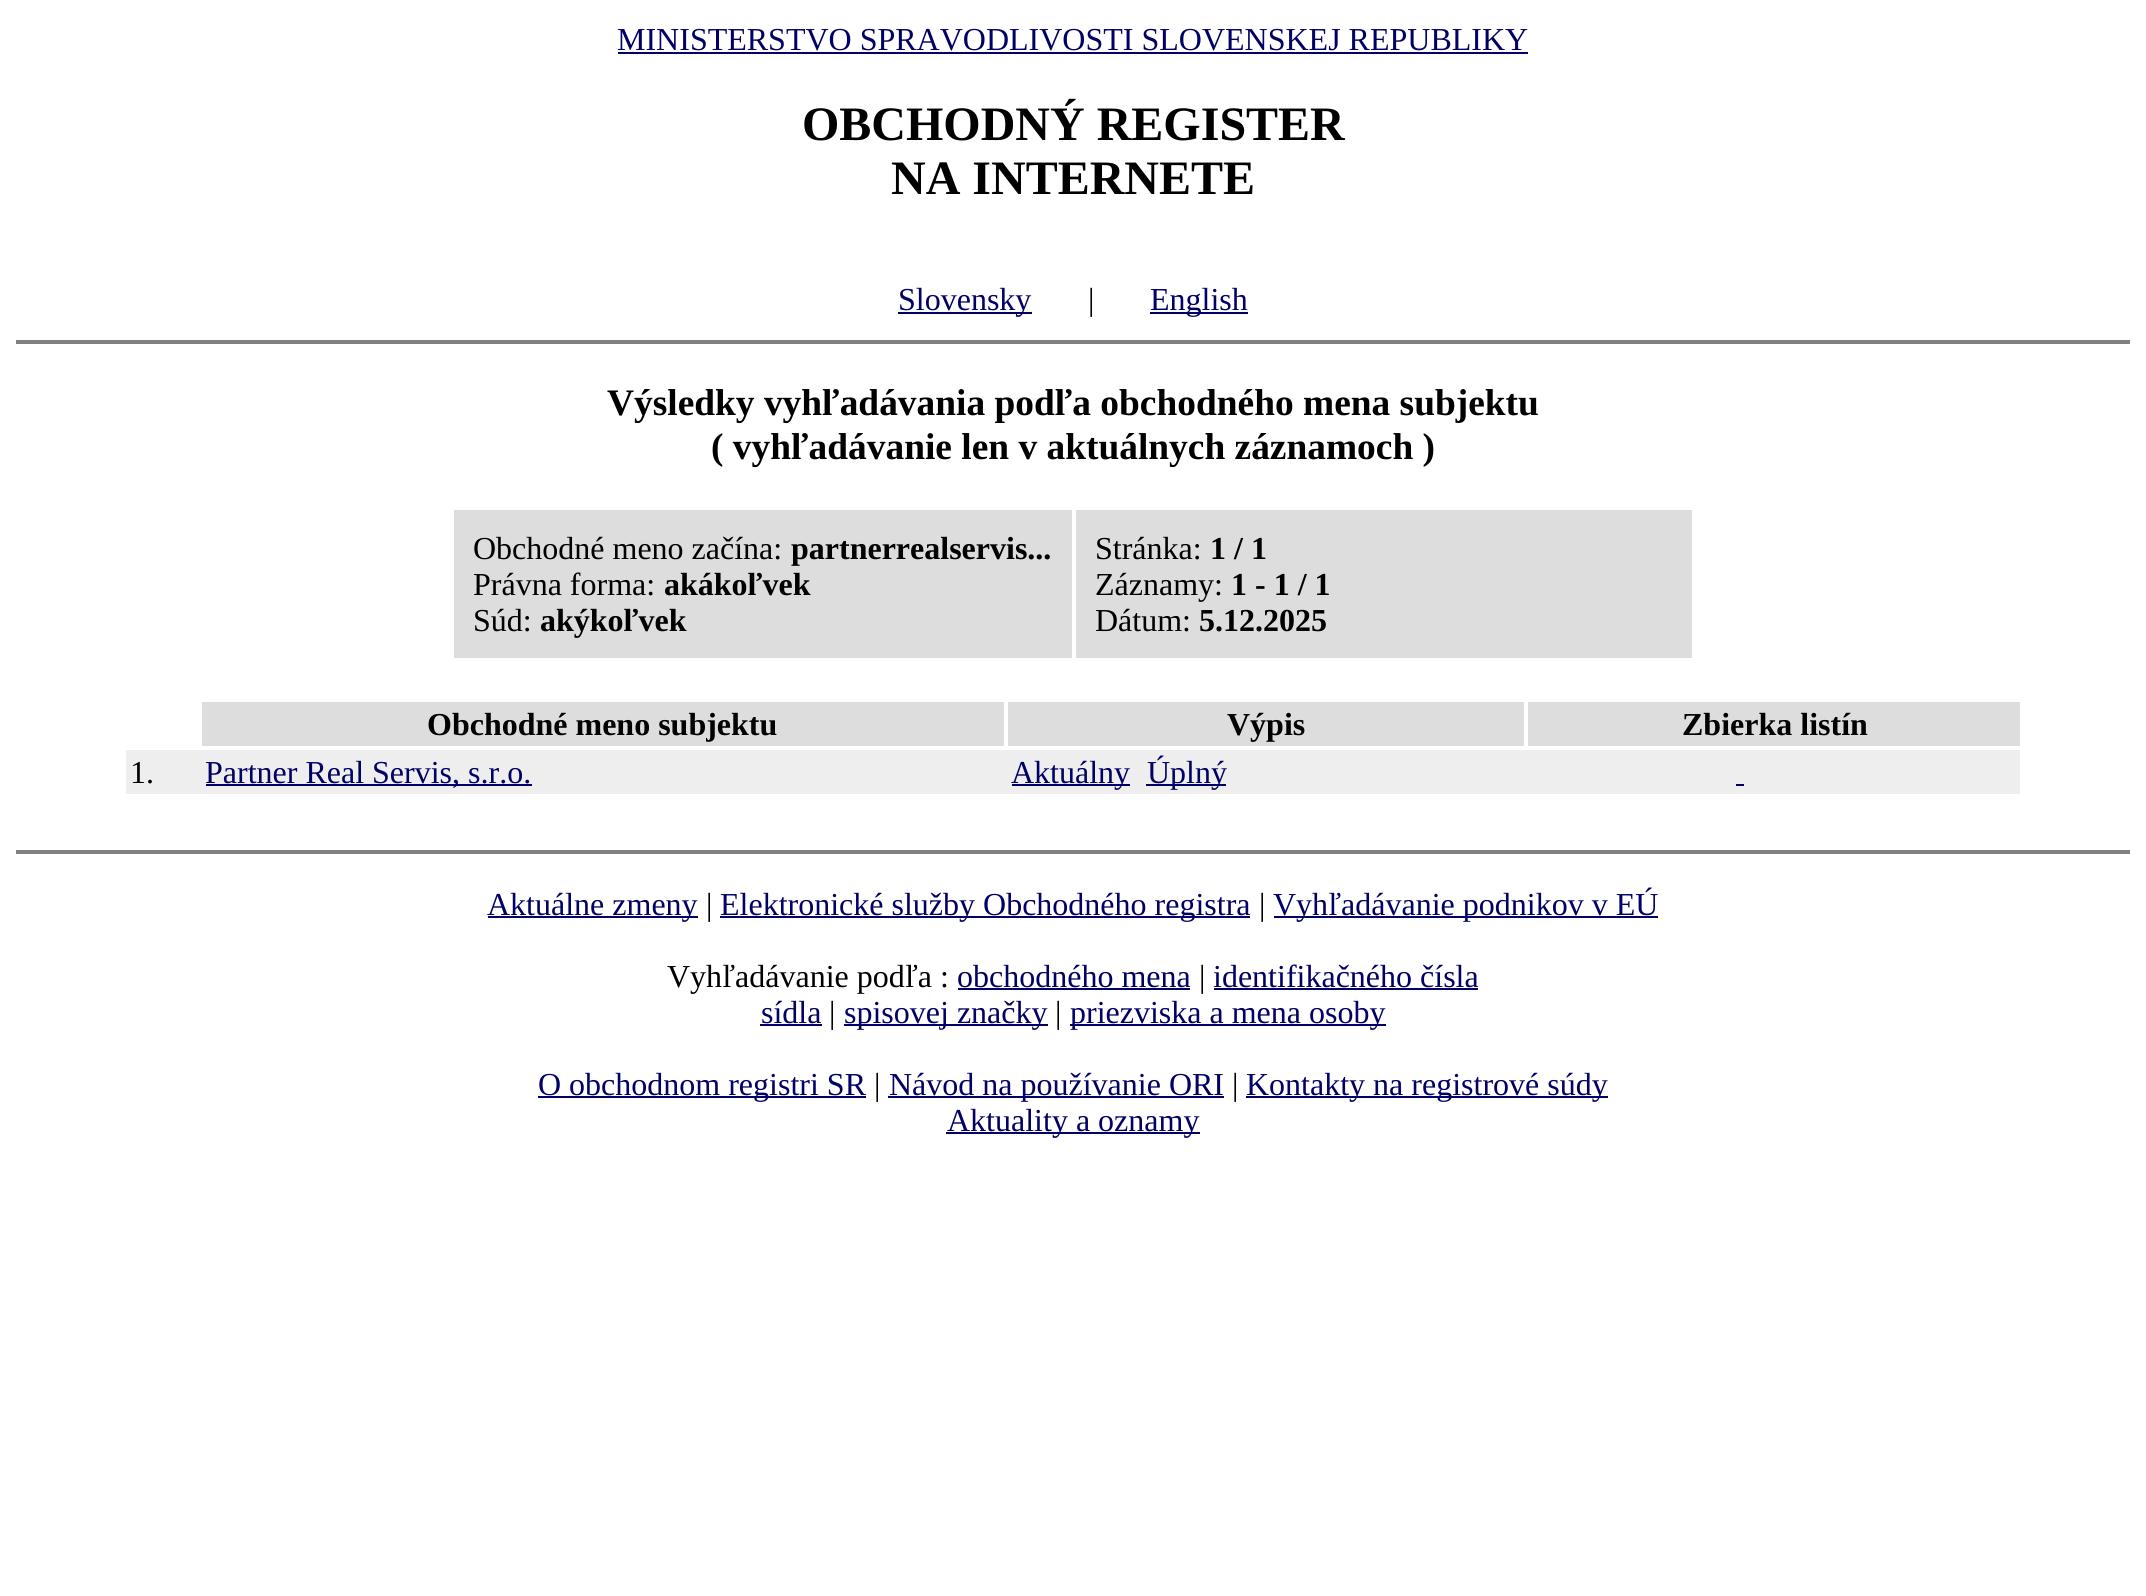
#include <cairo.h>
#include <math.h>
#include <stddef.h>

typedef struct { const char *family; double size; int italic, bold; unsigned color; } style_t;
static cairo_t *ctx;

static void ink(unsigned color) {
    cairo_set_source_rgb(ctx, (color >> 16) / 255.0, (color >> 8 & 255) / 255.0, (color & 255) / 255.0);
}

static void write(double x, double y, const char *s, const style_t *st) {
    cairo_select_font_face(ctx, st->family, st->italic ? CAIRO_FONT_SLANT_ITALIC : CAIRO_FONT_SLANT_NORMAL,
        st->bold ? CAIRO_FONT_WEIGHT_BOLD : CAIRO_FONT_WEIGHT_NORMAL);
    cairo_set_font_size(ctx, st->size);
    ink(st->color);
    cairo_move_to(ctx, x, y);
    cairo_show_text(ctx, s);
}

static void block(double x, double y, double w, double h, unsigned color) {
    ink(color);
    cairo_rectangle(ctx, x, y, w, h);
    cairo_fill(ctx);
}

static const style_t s1 = {"Liberation Serif", 32, 0, 0, 0x000066};
static const style_t s2 = {"Liberation Serif", 48, 0, 1, 0x000000};
static const style_t s3 = {"Liberation Serif", 32, 0, 0, 0x000000};
static const style_t s4 = {"Liberation Serif", 37.4, 0, 1, 0x000000};
static const style_t s5 = {"Liberation Serif", 32, 0, 1, 0x000000};

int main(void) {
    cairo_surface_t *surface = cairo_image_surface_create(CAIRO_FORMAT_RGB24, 2146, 1596);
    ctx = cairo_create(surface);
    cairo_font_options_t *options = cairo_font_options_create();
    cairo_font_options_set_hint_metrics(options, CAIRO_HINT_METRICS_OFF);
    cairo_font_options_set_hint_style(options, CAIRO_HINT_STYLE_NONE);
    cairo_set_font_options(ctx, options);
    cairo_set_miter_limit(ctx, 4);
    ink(0xffffff);
    cairo_paint(ctx);
    write(617, 50, "MINISTERSTVO SPRAVODLIVOSTI SLOVENSKEJ REPUBLIKY", &s1);
    block(618, 52, 910, 2, 0x000066);
    write(802, 140, "OBCHODNÝ REGISTER", &s2);
    write(891, 194, "NA INTERNETE", &s2);
    block(898, 312, 134, 2, 0x000066);
    write(898, 310, "Slovensky", &s1);
    write(1088, 310, "|", &s3);
    block(1150, 312, 98, 2, 0x000066);
    write(1150, 310, "English", &s1);
    block(16, 340, 2114, 4, 0x808080);
    write(607, 415, "Výsledky vyhľadávania podľa obchodného mena subjektu", &s4);
    write(711, 459, "( vyhľadávanie len v aktuálnych záznamoch )", &s4);
    block(454, 510, 618, 148, 0xdddddd);
    write(473, 559, "Obchodné meno začína:", &s3);
    write(791, 559, "partnerrealservis...", &s5);
    write(473, 595, "Právna forma:", &s3);
    write(664, 595, "akákoľvek", &s5);
    write(473, 631, "Súd:", &s3);
    write(540, 631, "akýkoľvek", &s5);
    block(1076, 510, 616, 148, 0xdddddd);
    write(1095, 559, "Stránka:", &s3);
    write(1210, 559, "1 / 1", &s5);
    write(1095, 595, "Záznamy:", &s3);
    write(1231, 595, "1 - 1 / 1", &s5);
    write(1095, 631, "Dátum:", &s3);
    write(1199, 631, "5.12.2025", &s5);
    block(202, 702, 802, 44, 0xdddddd);
    write(427, 735, "Obchodné meno subjektu", &s5);
    block(1008, 702, 516, 44, 0xdddddd);
    write(1227, 735, "Výpis", &s5);
    block(1528, 702, 492, 44, 0xdddddd);
    write(1682, 735, "Zbierka listín", &s5);
    block(126, 750, 1894, 44, 0xeeeeee);
    write(130, 783, "1.", &s3);
    block(206, 784, 326, 2, 0x000066);
    write(205, 783, "Partner Real Servis, s.r.o.", &s1);
    block(1012, 784, 118, 2, 0x000066);
    write(1011, 783, "Aktuálny", &s1);
    block(1146, 784, 80, 2, 0x000066);
    write(1147, 783, "Úplný", &s1);
    block(1736, 784, 8, 2, 0x000066);
    block(16, 850, 2114, 4, 0x808080);
    block(488, 916, 210, 2, 0x000066);
    write(487, 915, "Aktuálne zmeny", &s1);
    write(706, 915, "|", &s3);
    block(720, 916, 530, 2, 0x000066);
    write(720, 915, "Elektronické služby Obchodného registra", &s1);
    write(1259, 915, "|", &s3);
    block(1274, 916, 384, 2, 0x000066);
    write(1273, 915, "Vyhľadávanie podnikov v EÚ", &s1);
    write(667, 987, "Vyhľadávanie podľa :", &s3);
    write(957, 987, "obchodného mena", &s1);
    block(958, 988, 232, 2, 0x000066);
    write(1199, 987, "|", &s3);
    write(1213, 987, "identifikačného čísla", &s1);
    block(1214, 988, 264, 2, 0x000066);
    write(761, 1023, "sídla", &s1);
    block(760, 1024, 62, 2, 0x000066);
    write(829, 1023, "|", &s3);
    block(844, 1024, 204, 2, 0x000066);
    write(844, 1023, "spisovej značky", &s1);
    write(1055, 1023, "|", &s3);
    block(1070, 1024, 316, 2, 0x000066);
    write(1070, 1023, "priezviska a mena osoby", &s1);
    block(538, 1096, 328, 2, 0x000066);
    write(538, 1095, "O obchodnom registri SR", &s1);
    write(874, 1095, "|", &s3);
    block(888, 1096, 336, 2, 0x000066);
    write(889, 1095, "Návod na používanie ORI", &s1);
    write(1232, 1095, "|", &s3);
    block(1246, 1096, 362, 2, 0x000066);
    write(1246, 1095, "Kontakty na registrové súdy", &s1);
    block(946, 1132, 254, 2, 0x000066);
    write(947, 1131, "Aktuality a oznamy", &s1);
    cairo_surface_write_to_png(surface, "screenshot.png");
    cairo_font_options_destroy(options);
    cairo_destroy(ctx);
    cairo_surface_destroy(surface);
    return 0;
}
